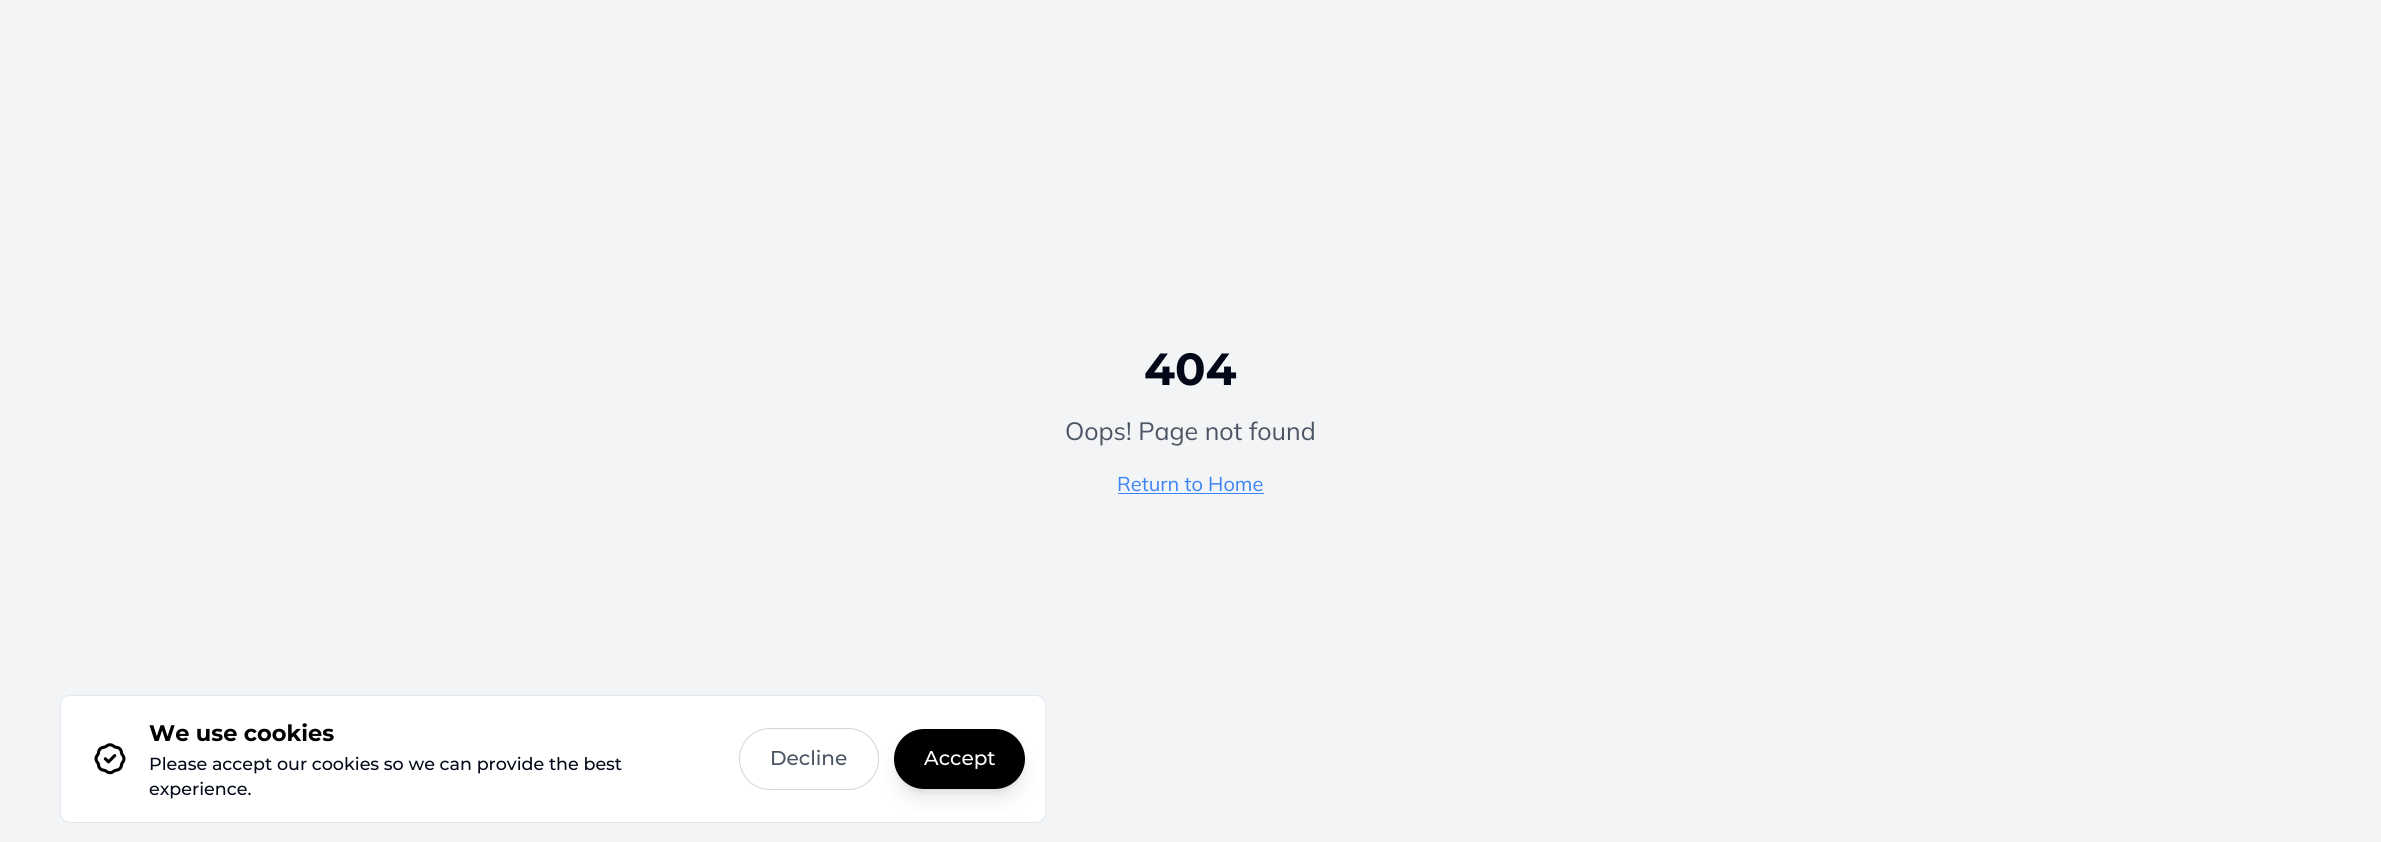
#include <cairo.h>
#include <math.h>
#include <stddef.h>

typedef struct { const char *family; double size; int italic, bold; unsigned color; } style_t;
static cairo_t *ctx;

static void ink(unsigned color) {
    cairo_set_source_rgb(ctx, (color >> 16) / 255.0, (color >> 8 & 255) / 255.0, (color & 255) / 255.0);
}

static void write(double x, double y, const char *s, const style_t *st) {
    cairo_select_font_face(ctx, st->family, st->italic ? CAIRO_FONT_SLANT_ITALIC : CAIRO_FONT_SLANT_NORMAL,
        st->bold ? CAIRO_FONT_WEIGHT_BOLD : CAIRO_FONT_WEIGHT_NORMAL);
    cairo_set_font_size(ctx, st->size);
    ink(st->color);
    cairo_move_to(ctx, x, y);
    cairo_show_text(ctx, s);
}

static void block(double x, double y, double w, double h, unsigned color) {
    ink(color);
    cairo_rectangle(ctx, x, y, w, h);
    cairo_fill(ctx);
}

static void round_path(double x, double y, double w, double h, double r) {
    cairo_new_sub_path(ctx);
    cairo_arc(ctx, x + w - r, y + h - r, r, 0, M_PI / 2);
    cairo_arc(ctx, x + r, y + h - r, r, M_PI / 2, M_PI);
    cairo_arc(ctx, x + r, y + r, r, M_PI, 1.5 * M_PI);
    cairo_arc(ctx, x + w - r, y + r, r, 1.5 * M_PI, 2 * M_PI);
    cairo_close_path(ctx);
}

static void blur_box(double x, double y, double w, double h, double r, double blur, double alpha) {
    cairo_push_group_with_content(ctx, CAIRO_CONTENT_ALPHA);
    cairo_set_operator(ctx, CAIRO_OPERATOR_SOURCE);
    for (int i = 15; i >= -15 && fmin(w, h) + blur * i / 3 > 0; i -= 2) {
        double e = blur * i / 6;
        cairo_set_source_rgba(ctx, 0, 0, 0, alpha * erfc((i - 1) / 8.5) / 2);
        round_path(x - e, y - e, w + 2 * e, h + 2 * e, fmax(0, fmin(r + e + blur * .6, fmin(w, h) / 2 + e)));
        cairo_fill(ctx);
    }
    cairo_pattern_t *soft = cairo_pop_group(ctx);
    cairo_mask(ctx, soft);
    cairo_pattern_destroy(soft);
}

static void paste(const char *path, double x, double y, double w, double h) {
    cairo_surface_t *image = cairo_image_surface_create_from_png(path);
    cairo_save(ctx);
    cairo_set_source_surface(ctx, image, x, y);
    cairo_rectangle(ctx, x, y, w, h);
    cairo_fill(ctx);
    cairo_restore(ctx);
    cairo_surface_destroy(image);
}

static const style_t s1 = {"Montserrat", 45, 0, 1, 0x020817};
static const style_t s2 = {"Mulish", 25, 0, 0, 0x4b5563};
static const style_t s3 = {"Mulish", 20, 0, 0, 0x3b82f6};
static const style_t s4 = {"Montserrat", 22.5, 0, 1, 0x000000};
static const style_t s5 = {"Montserrat Medium", 17.5, 0, 0, 0x020817};
static const style_t s6 = {"Montserrat Medium", 20, 0, 0, 0x4b5563};
static const style_t s7 = {"Montserrat Medium", 20, 0, 0, 0xffffff};

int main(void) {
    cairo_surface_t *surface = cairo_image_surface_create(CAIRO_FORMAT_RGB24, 2381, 842);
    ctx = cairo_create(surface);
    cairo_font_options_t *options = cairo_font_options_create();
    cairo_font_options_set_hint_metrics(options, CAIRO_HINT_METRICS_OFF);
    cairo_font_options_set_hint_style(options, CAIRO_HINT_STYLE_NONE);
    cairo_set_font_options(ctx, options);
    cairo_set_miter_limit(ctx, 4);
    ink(0xf3f4f6);
    cairo_paint(ctx);
    write(1144, 385, "404", &s1);
    write(1065, 440, "Oops! Page not found", &s2);
    write(1117, 491, "Return to Home", &s3);
    block(1118, 493, 146, 1, 0x3b82f6);
    ink(0xffffff);
    round_path(60.5, 695.5, 985, 127, 9.5);
    cairo_fill_preserve(ctx);
    ink(0xe2e8f0);
    cairo_set_line_width(ctx, 1);
    cairo_stroke(ctx);
    paste("pic1.png", 94, 743, 32, 32);
    write(149, 741, "We use cookies", &s4);
    write(149, 770, "Please accept our cookies so we can provide the best", &s5);
    write(149, 795, "experience.", &s5);
    round_path(739.5, 728.5, 139, 61, 30.5);
    ink(0xd1d5db);
    cairo_stroke(ctx);
    write(770, 765, "Decline", &s6);
    ink(0x000000);
    blur_box(899, 739, 121, 50, 25, 4, 0.1);
    blur_box(898, 745, 123, 53, 26.5, 9.5, 0.1);
    ink(0x000000);
    round_path(894, 729, 131, 60, 30);
    cairo_fill(ctx);
    write(924, 765, "Accept", &s7);
    cairo_surface_write_to_png(surface, "screenshot.png");
    cairo_font_options_destroy(options);
    cairo_destroy(ctx);
    cairo_surface_destroy(surface);
    return 0;
}
